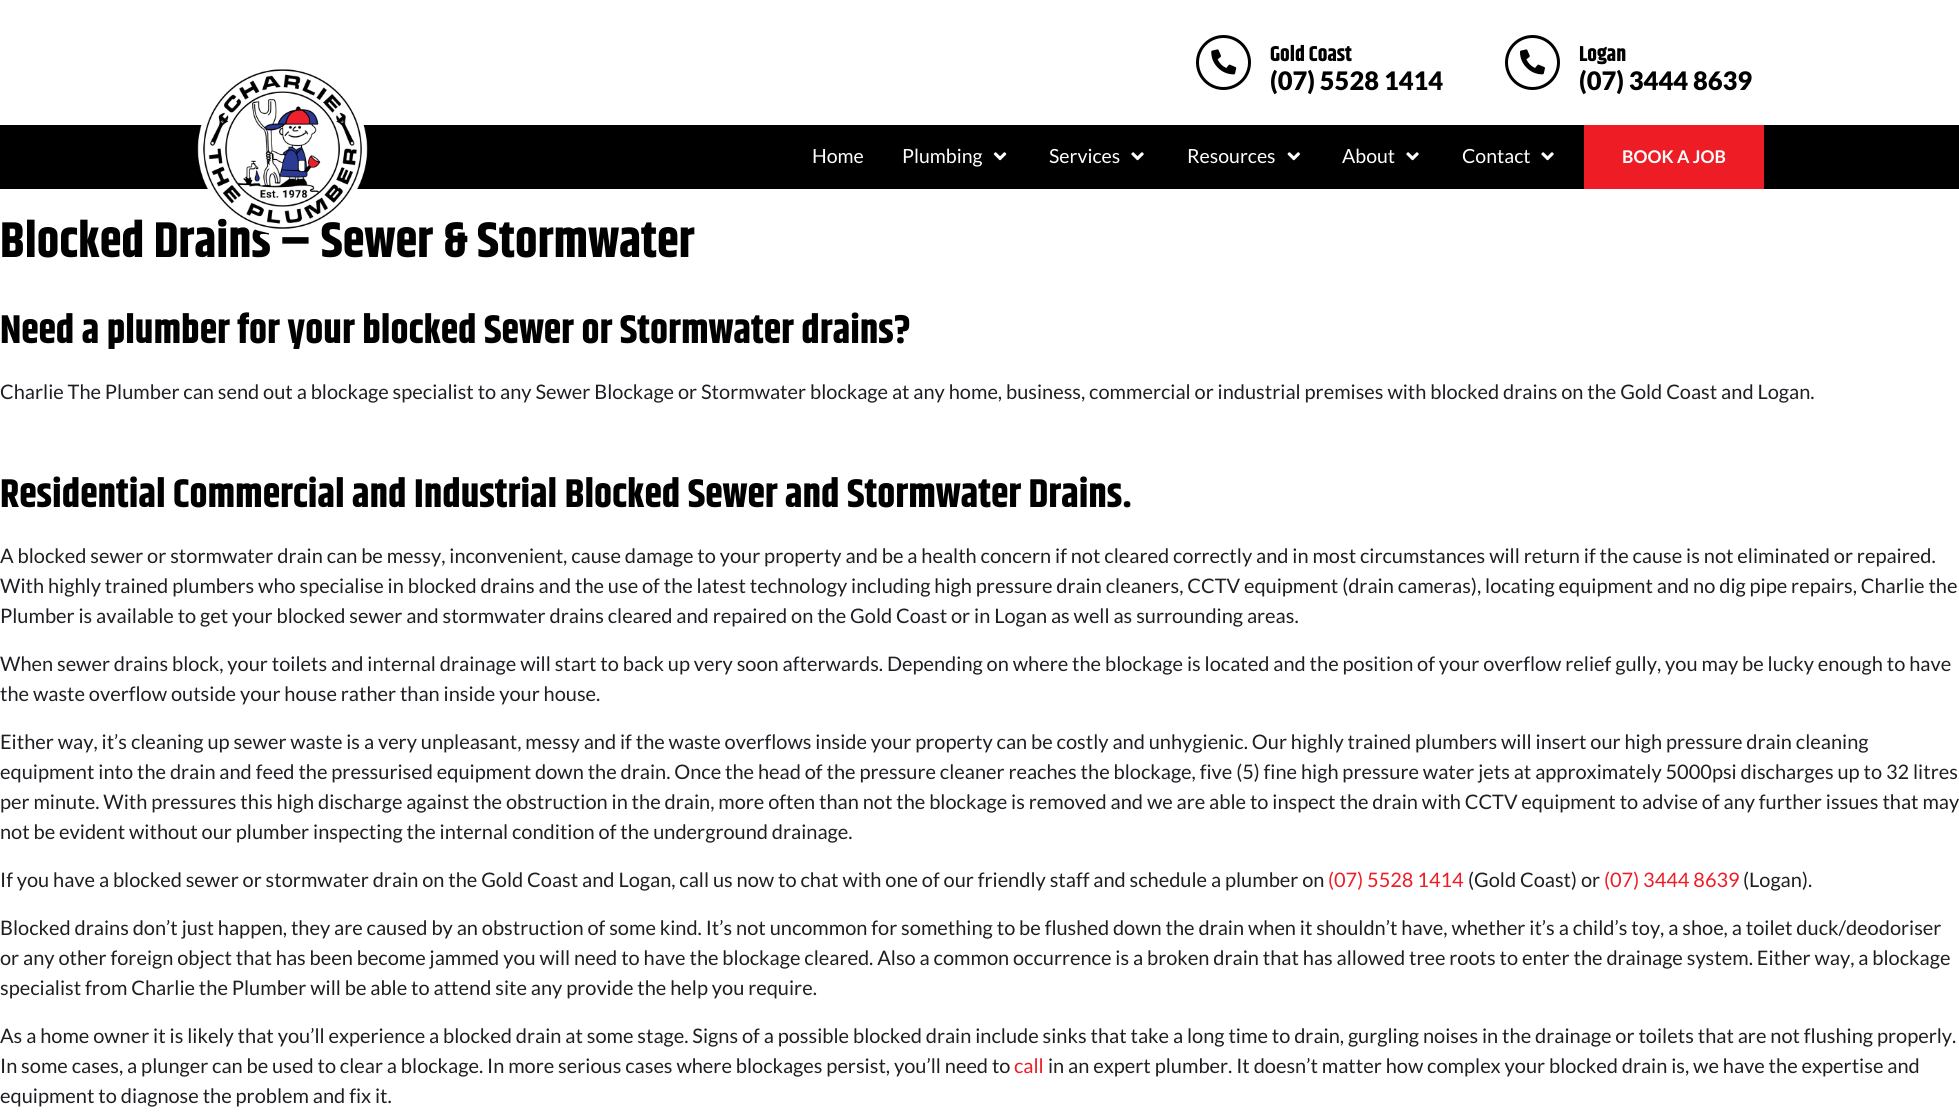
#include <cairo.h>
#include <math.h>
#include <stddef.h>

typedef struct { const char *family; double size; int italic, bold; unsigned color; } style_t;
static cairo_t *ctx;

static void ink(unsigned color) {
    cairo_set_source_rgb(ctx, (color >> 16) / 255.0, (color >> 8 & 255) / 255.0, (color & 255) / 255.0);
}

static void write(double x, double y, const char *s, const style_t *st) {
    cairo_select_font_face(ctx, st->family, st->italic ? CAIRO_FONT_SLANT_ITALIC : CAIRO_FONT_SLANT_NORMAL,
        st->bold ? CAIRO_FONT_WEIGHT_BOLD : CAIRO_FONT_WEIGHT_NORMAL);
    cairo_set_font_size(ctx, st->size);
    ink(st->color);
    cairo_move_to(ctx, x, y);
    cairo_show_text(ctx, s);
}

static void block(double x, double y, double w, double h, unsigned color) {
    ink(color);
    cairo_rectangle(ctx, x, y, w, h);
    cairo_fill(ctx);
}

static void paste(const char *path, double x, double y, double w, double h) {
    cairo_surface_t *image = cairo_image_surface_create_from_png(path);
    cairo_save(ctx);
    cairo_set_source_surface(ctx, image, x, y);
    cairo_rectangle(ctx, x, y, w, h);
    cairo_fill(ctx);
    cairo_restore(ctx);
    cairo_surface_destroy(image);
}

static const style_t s1 = {"Khand", 50, 0, 1, 0x000000};
static const style_t s2 = {"Khand", 21.5, 0, 1, 0x000000};
static const style_t s3 = {"Lato Black", 25.5, 0, 0, 0x000000};
static const style_t s4 = {"Lato", 19.5, 0, 0, 0xffffff};
static const style_t s5 = {"Lato", 17.5, 0, 1, 0xffffff};
static const style_t s6 = {"Khand", 40, 0, 1, 0x000000};
static const style_t s7 = {"Lato", 20, 0, 0, 0x201e23};
static const style_t s8 = {"Lato", 20, 0, 0, 0xee1c24};

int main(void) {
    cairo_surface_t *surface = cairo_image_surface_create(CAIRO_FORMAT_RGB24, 1959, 1112);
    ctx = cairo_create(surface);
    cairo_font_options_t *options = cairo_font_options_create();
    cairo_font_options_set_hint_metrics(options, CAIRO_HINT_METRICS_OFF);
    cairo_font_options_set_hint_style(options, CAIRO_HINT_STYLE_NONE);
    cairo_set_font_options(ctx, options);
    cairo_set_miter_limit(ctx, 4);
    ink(0xffffff);
    cairo_paint(ctx);
    block(0, 125, 1959, 64, 0x000000);
    write(0, 257, "Blocked Drains – Sewer & Stormwater", &s1);
    paste("pic1.png", 197, 69, 171, 165);
    cairo_arc(ctx, 1223.5, 62.5, 26, 0, 2 * M_PI);
    cairo_set_line_width(ctx, 3);
    cairo_stroke(ctx);
    paste("pic2.png", 1211, 49, 26, 26);
    write(1270, 61, "Gold Coast", &s2);
    write(1270, 90, "(07) 5528 1414", &s3);
    cairo_new_path(ctx);
    cairo_arc(ctx, 1532.5, 62.5, 26, 0, 2 * M_PI);
    cairo_stroke(ctx);
    paste("pic3.png", 1520, 49, 25, 26);
    write(1579, 61, "Logan", &s2);
    write(1579, 90, "(07) 3444 8639", &s3);
    write(812, 163, "Home", &s4);
    write(902, 163, "Plumbing", &s4);
    paste("pic4.png", 993, 152, 14, 9);
    write(1049, 163, "Services", &s4);
    paste("pic5.png", 1131, 152, 13, 9);
    write(1187, 163, "Resources", &s4);
    paste("pic6.png", 1287, 152, 13, 9);
    write(1342, 163, "About", &s4);
    paste("pic5.png", 1406, 152, 13, 9);
    write(1462, 163, "Contact", &s4);
    paste("pic5.png", 1541, 152, 13, 9);
    block(1584, 125, 180, 64, 0xee1c24);
    write(1622, 163, "BOOK A JOB", &s5);
    write(0, 343, "Need a plumber for your blocked Sewer or Stormwater drains?", &s6);
    write(0, 399, "Charlie The Plumber can send out a blockage specialist to any Sewer Blockage or Stormwater blockage at any home, business, commercial or industrial premises with blocked drains on the Gold Coast and Logan.", &s7);
    write(0, 507, "Residential Commercial and Industrial Blocked Sewer and Stormwater Drains.", &s6);
    write(0, 563, "A blocked sewer or stormwater drain can be messy, inconvenient, cause damage to your property and be a health concern if not cleared correctly and in most circumstances will return if the cause is not eliminated or repaired.", &s7);
    write(0, 593, "With highly trained plumbers who specialise in blocked drains and the use of the latest technology including high pressure drain cleaners, CCTV equipment (drain cameras), locating equipment and no dig pipe repairs, Charlie the", &s7);
    write(0, 623, "Plumber is available to get your blocked sewer and stormwater drains cleared and repaired on the Gold Coast or in Logan as well as surrounding areas.", &s7);
    write(0, 671, "When sewer drains block, your toilets and internal drainage will start to back up very soon afterwards. Depending on where the blockage is located and the position of your overflow relief gully, you may be lucky enough to have", &s7);
    write(0, 701, "the waste overflow outside your house rather than inside your house.", &s7);
    write(0, 749, "Either way, it’s cleaning up sewer waste is a very unpleasant, messy and if the waste overflows inside your property can be costly and unhygienic. Our highly trained plumbers will insert our high pressure drain cleaning", &s7);
    write(0, 779, "equipment into the drain and feed the pressurised equipment down the drain. Once the head of the pressure cleaner reaches the blockage, five (5) fine high pressure water jets at approximately 5000psi discharges up to 32 litres", &s7);
    write(0, 809, "per minute. With pressures this high discharge against the obstruction in the drain, more often than not the blockage is removed and we are able to inspect the drain with CCTV equipment to advise of any further issues that may", &s7);
    write(0, 839, "not be evident without our plumber inspecting the internal condition of the underground drainage.", &s7);
    write(0, 887, "If you have a blocked sewer or stormwater drain on the Gold Coast and Logan, call us now to chat with one of our friendly staff and schedule a plumber on", &s7);
    write(1328, 887, "(07) 5528 1414", &s8);
    write(1468, 887, "(Gold Coast) or", &s7);
    write(1604, 887, "(07) 3444 8639", &s8);
    write(1743, 887, "(Logan).", &s7);
    write(0, 935, "Blocked drains don’t just happen, they are caused by an obstruction of some kind. It’s not uncommon for something to be flushed down the drain when it shouldn’t have, whether it’s a child’s toy, a shoe, a toilet duck/deodoriser", &s7);
    write(0, 965, "or any other foreign object that has been become jammed you will need to have the blockage cleared. Also a common occurrence is a broken drain that has allowed tree roots to enter the drainage system. Either way, a blockage", &s7);
    write(0, 995, "specialist from Charlie the Plumber will be able to attend site any provide the help you require.", &s7);
    write(0, 1043, "As a home owner it is likely that you’ll experience a blocked drain at some stage. Signs of a possible blocked drain include sinks that take a long time to drain, gurgling noises in the drainage or toilets that are not flushing properly.", &s7);
    write(0, 1073, "In some cases, a plunger can be used to clear a blockage. In more serious cases where blockages persist, you’ll need to", &s7);
    write(1014, 1073, "call", &s8);
    write(1048, 1073, "in an expert plumber. It doesn’t matter how complex your blocked drain is, we have the expertise and", &s7);
    write(0, 1103, "equipment to diagnose the problem and fix it.", &s7);
    cairo_surface_write_to_png(surface, "screenshot.png");
    cairo_font_options_destroy(options);
    cairo_destroy(ctx);
    cairo_surface_destroy(surface);
    return 0;
}
